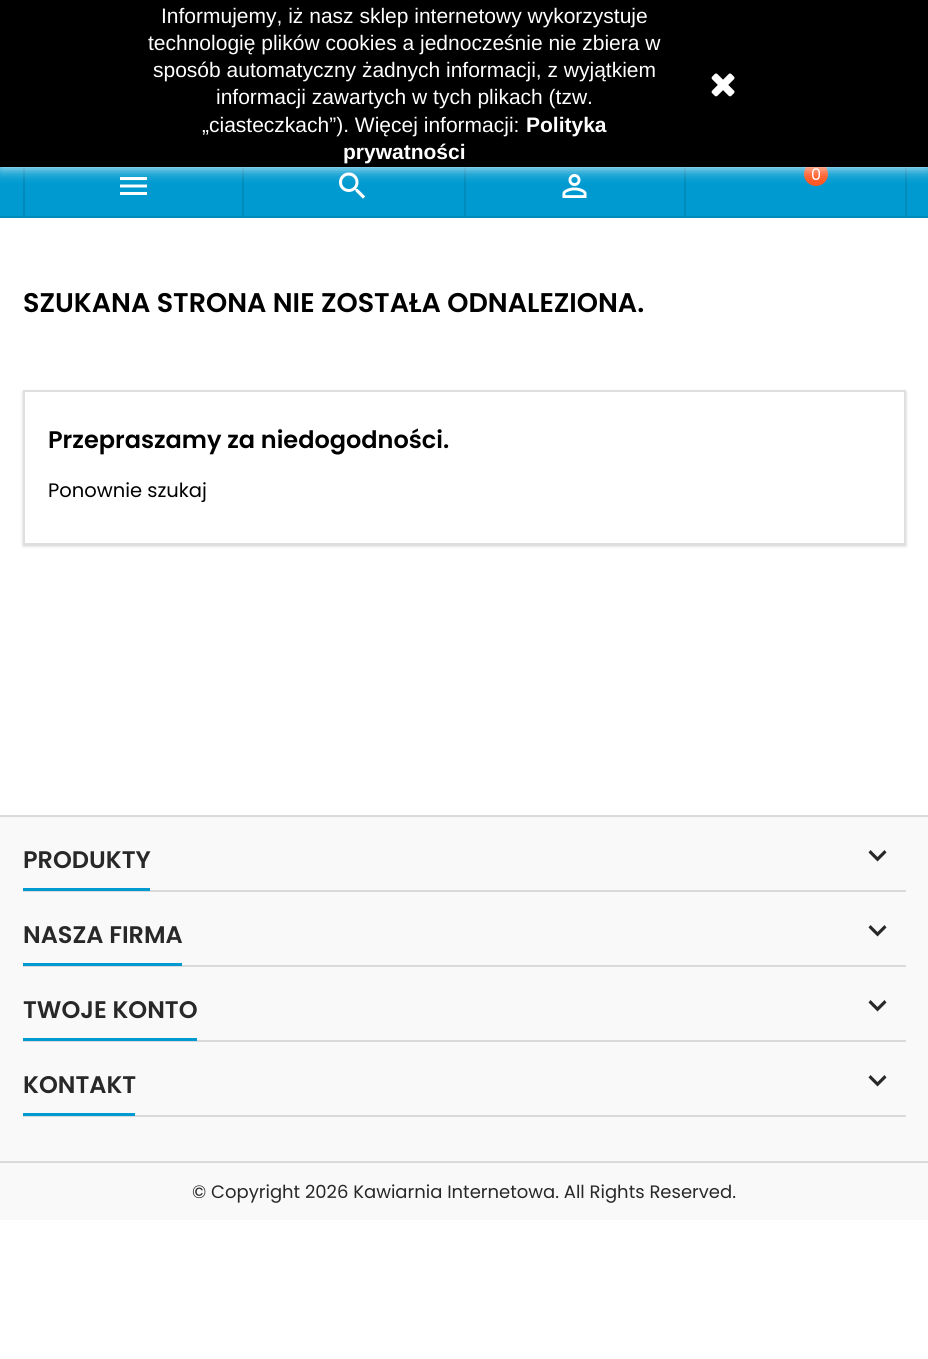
#include <cairo.h>
#include <math.h>
#include <stddef.h>

typedef struct { const char *family; double size; int italic, bold; unsigned color; } style_t;
static cairo_t *ctx;

static void ink(unsigned color) {
    cairo_set_source_rgb(ctx, (color >> 16) / 255.0, (color >> 8 & 255) / 255.0, (color & 255) / 255.0);
}

static void write(double x, double y, const char *s, const style_t *st) {
    cairo_select_font_face(ctx, st->family, st->italic ? CAIRO_FONT_SLANT_ITALIC : CAIRO_FONT_SLANT_NORMAL,
        st->bold ? CAIRO_FONT_WEIGHT_BOLD : CAIRO_FONT_WEIGHT_NORMAL);
    cairo_set_font_size(ctx, st->size);
    ink(st->color);
    cairo_move_to(ctx, x, y);
    cairo_show_text(ctx, s);
}

static void block(double x, double y, double w, double h, unsigned color) {
    ink(color);
    cairo_rectangle(ctx, x, y, w, h);
    cairo_fill(ctx);
}

static void round_path(double x, double y, double w, double h, double r) {
    cairo_new_sub_path(ctx);
    cairo_arc(ctx, x + w - r, y + h - r, r, 0, M_PI / 2);
    cairo_arc(ctx, x + r, y + h - r, r, M_PI / 2, M_PI);
    cairo_arc(ctx, x + r, y + r, r, M_PI, 1.5 * M_PI);
    cairo_arc(ctx, x + w - r, y + r, r, 1.5 * M_PI, 2 * M_PI);
    cairo_close_path(ctx);
}

static void blur_box(double x, double y, double w, double h, double r, double blur, double alpha) {
    cairo_push_group_with_content(ctx, CAIRO_CONTENT_ALPHA);
    cairo_set_operator(ctx, CAIRO_OPERATOR_SOURCE);
    for (int i = 15; i >= -15 && fmin(w, h) + blur * i / 3 > 0; i -= 2) {
        double e = blur * i / 6;
        cairo_set_source_rgba(ctx, 0, 0, 0, alpha * erfc((i - 1) / 8.5) / 2);
        round_path(x - e, y - e, w + 2 * e, h + 2 * e, fmax(0, fmin(r + e + blur * .6, fmin(w, h) / 2 + e)));
        cairo_fill(ctx);
    }
    cairo_pattern_t *soft = cairo_pop_group(ctx);
    cairo_mask(ctx, soft);
    cairo_pattern_destroy(soft);
}

static void paste(const char *path, double x, double y, double w, double h) {
    cairo_surface_t *image = cairo_image_surface_create_from_png(path);
    cairo_save(ctx);
    cairo_set_source_surface(ctx, image, x, y);
    cairo_rectangle(ctx, x, y, w, h);
    cairo_fill(ctx);
    cairo_restore(ctx);
    cairo_surface_destroy(image);
}

static const style_t s1 = {"Liberation Sans", 21, 0, 0, 0xffffff};
static const style_t s2 = {"Liberation Sans", 21, 0, 1, 0xffffff};
static const style_t s3 = {"Poppins", 16, 0, 0, 0xffffff};
static const style_t s4 = {"Poppins SemiBold", 27, 0, 0, 0x000000};
static const style_t s5 = {"Poppins SemiBold", 24, 0, 0, 0x000000};
static const style_t s6 = {"Poppins", 19.5, 0, 0, 0x000000};
static const style_t s7 = {"Poppins SemiBold", 24, 0, 0, 0x282828};
static const style_t s8 = {"Poppins", 18, 0, 0, 0x282828};

int main(void) {
    cairo_surface_t *surface = cairo_image_surface_create(CAIRO_FORMAT_RGB24, 928, 1359);
    ctx = cairo_create(surface);
    cairo_font_options_t *options = cairo_font_options_create();
    cairo_font_options_set_hint_metrics(options, CAIRO_HINT_METRICS_OFF);
    cairo_font_options_set_hint_style(options, CAIRO_HINT_STYLE_NONE);
    cairo_set_font_options(ctx, options);
    cairo_set_miter_limit(ctx, 4);
    ink(0xffffff);
    cairo_paint(ctx);
    block(0, 167, 928, 49, 0x009ad0);
    block(242, 167, 2, 49, 0x008bbb);
    block(23, 167, 2, 49, 0x008bbb);
    paste("pic2.png", 120, 177, 27, 18);
    block(464, 167, 2, 49, 0x008bbb);
    paste("pic3.png", 339, 172, 27, 27);
    block(684, 167, 2, 49, 0x008bbb);
    paste("pic4.png", 562, 174, 25, 24);
    block(905, 167, 2, 49, 0x008bbb);
    ink(0xff5722);
    cairo_arc(ctx, 816, 174, 12, 0, 2 * M_PI);
    cairo_fill(ctx);
    ink(0xffffff);
    blur_box(0, 0, 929, 167, 0, 7.5, 1);
    block(0, 0, 928, 167, 0x000000);
    write(161, 23, "Informujemy, iż nasz sklep internetowy wykorzystuje", &s1);
    write(148, 50, "technologię plików cookies a jednocześnie nie zbiera w", &s1);
    write(153, 77, "sposób automatyczny żadnych informacji, z wyjątkiem", &s1);
    write(216, 104, "informacji zawartych w tych plikach (tzw.", &s1);
    write(202, 132, "„ciasteczkach”). Więcej informacji:", &s1);
    write(526, 132, "Polityka", &s2);
    write(343, 159, "prywatności", &s2);
    paste("pic1.png", 711, 73, 24, 24);
    block(0, 216, 928, 2, 0x008bbb);
    write(811, 180, "0", &s3);
    write(23, 312, "SZUKANA STRONA NIE ZOSTAŁA ODNALEZIONA.", &s4);
    ink(0x000000);
    blur_box(23, 392, 883, 154, 0, 1.5, 0.2);
    ink(0xffffff);
    cairo_rectangle(ctx, 24, 391, 881, 153);
    cairo_fill_preserve(ctx);
    ink(0xdfdfdf);
    cairo_stroke(ctx);
    write(48, 448, "Przepraszamy za niedogodności.", &s5);
    write(48, 497, "Ponownie szukaj", &s6);
    block(0, 817, 928, 344, 0xf9f9f9);
    block(0, 815, 928, 2, 0xdadada);
    block(23, 890, 883, 2, 0xdadada);
    block(23, 888, 127, 3, 0x009ad0);
    write(23, 868, "PRODUKTY", &s7);
    cairo_new_path(ctx);
    cairo_move_to(ctx, 870.5, 850);
    cairo_line_to(ctx, 877.5, 857);
    cairo_line_to(ctx, 884.5, 850);
    cairo_line_to(ctx, 886.5, 852.5);
    cairo_line_to(ctx, 877.5, 861.5);
    cairo_line_to(ctx, 868.5, 852.5);
    cairo_close_path(ctx);
    cairo_fill(ctx);
    block(23, 965, 883, 2, 0xdadada);
    block(23, 963, 159, 3, 0x009ad0);
    write(23, 943, "NASZA FIRMA", &s7);
    cairo_new_path(ctx);
    cairo_move_to(ctx, 870.5, 925);
    cairo_line_to(ctx, 877.5, 932);
    cairo_line_to(ctx, 884.5, 925);
    cairo_line_to(ctx, 886.5, 927.5);
    cairo_line_to(ctx, 877.5, 936.5);
    cairo_line_to(ctx, 868.5, 927.5);
    cairo_close_path(ctx);
    cairo_fill(ctx);
    block(23, 1040, 883, 2, 0xdadada);
    block(23, 1038, 174, 3, 0x009ad0);
    write(23, 1018, "TWOJE KONTO", &s7);
    cairo_new_path(ctx);
    cairo_move_to(ctx, 870.5, 1000);
    cairo_line_to(ctx, 877.5, 1007);
    cairo_line_to(ctx, 884.5, 1000);
    cairo_line_to(ctx, 886.5, 1002.5);
    cairo_line_to(ctx, 877.5, 1011.5);
    cairo_line_to(ctx, 868.5, 1002.5);
    cairo_close_path(ctx);
    cairo_fill(ctx);
    block(23, 1115, 883, 2, 0xdadada);
    block(23, 1113, 112, 3, 0x009ad0);
    write(23, 1093, "KONTAKT", &s7);
    cairo_new_path(ctx);
    cairo_move_to(ctx, 870.5, 1075);
    cairo_line_to(ctx, 877.5, 1082);
    cairo_line_to(ctx, 884.5, 1075);
    cairo_line_to(ctx, 886.5, 1077.5);
    cairo_line_to(ctx, 877.5, 1086.5);
    cairo_line_to(ctx, 868.5, 1077.5);
    cairo_close_path(ctx);
    cairo_fill(ctx);
    block(0, 1163, 928, 57, 0xf9f9f9);
    block(0, 1161, 928, 2, 0xdadada);
    write(192, 1198, "© Copyright 2026 Kawiarnia Internetowa. All Rights Reserved.", &s8);
    cairo_surface_write_to_png(surface, "screenshot.png");
    cairo_font_options_destroy(options);
    cairo_destroy(ctx);
    cairo_surface_destroy(surface);
    return 0;
}
